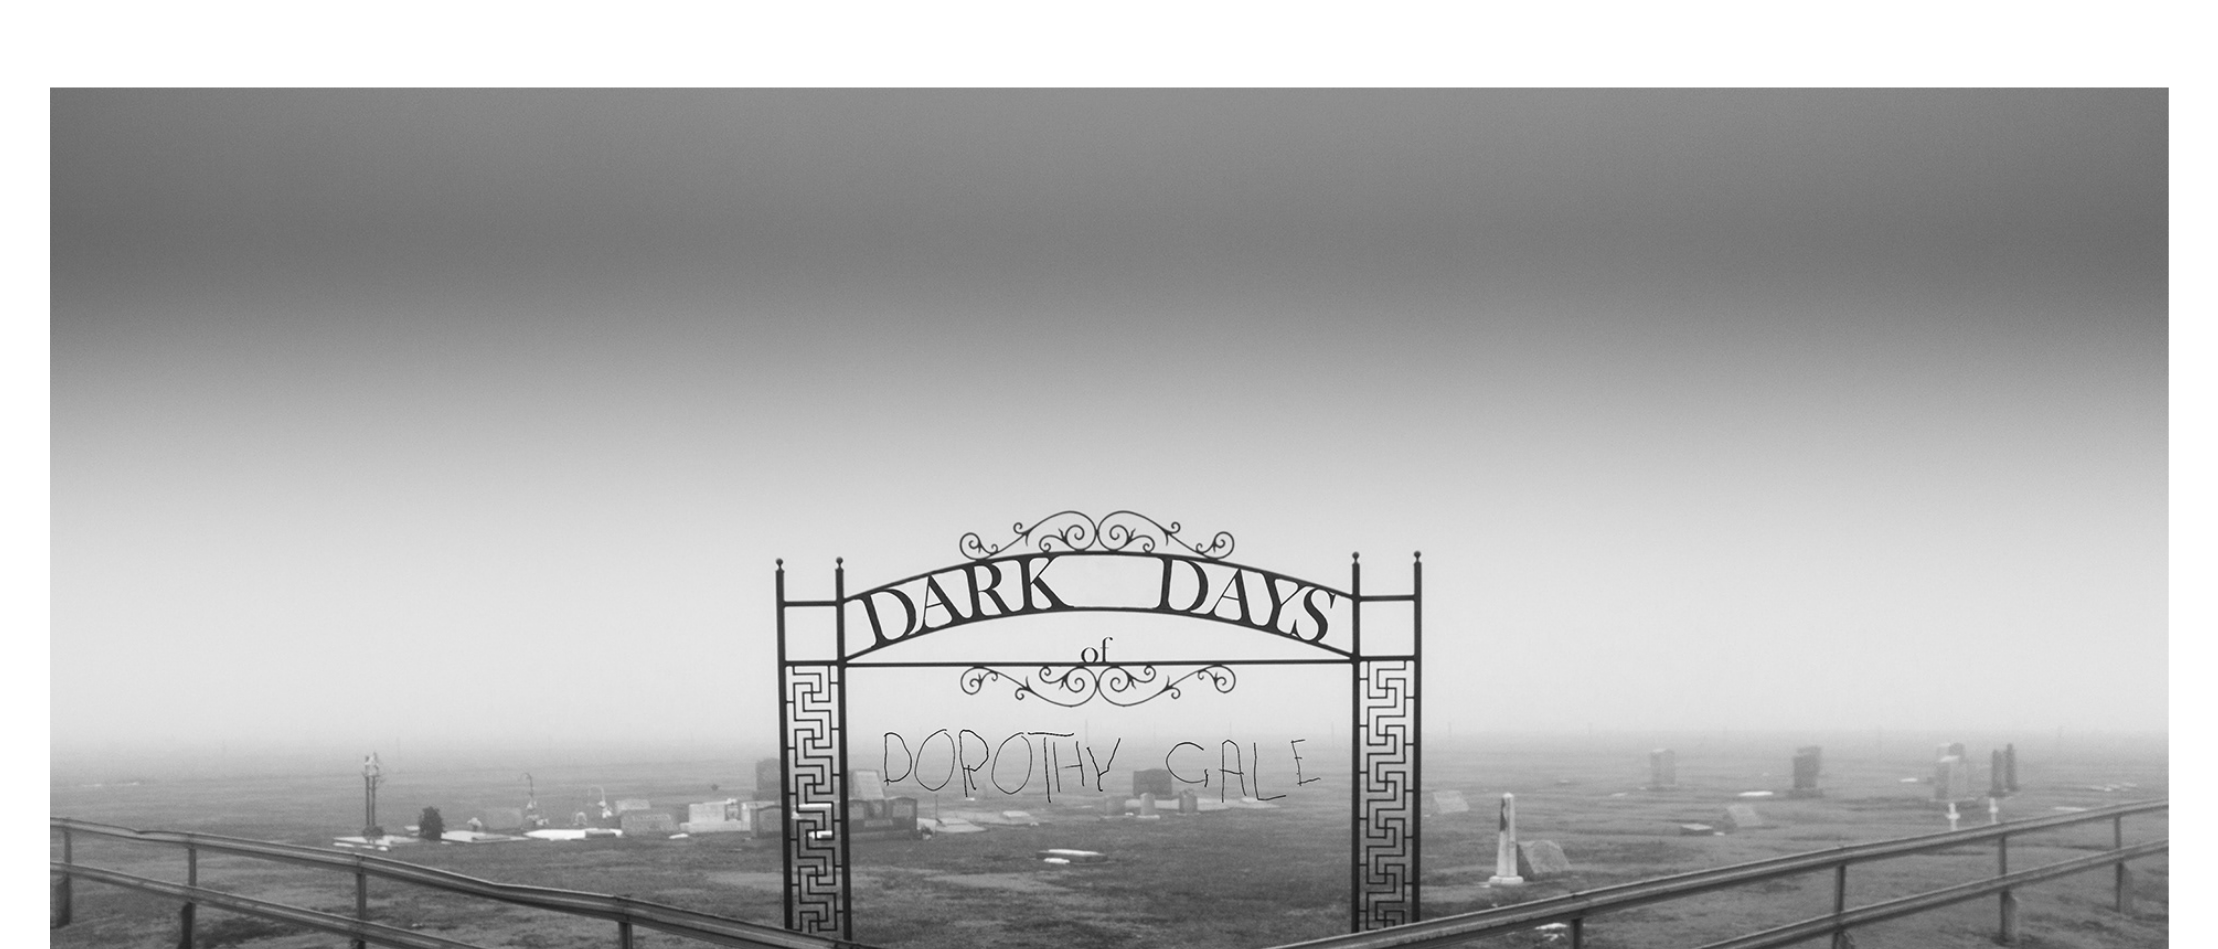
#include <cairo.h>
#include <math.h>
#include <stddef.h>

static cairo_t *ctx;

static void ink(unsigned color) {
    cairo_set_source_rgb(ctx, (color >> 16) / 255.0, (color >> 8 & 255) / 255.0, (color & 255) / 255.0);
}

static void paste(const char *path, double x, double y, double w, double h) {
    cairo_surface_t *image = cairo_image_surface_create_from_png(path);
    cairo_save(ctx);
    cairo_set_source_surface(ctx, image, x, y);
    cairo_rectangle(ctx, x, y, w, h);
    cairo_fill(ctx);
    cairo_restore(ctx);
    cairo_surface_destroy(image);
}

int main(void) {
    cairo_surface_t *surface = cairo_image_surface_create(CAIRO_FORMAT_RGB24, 2218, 949);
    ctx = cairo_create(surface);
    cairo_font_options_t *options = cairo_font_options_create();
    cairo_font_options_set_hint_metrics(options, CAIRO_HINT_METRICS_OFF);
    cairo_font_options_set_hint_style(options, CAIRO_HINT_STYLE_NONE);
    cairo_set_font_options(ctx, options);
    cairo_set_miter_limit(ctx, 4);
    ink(0xffffff);
    cairo_paint(ctx);
    paste("pic1.png", 50, 87, 2119, 862);
    cairo_surface_write_to_png(surface, "screenshot.png");
    cairo_font_options_destroy(options);
    cairo_destroy(ctx);
    cairo_surface_destroy(surface);
    return 0;
}
